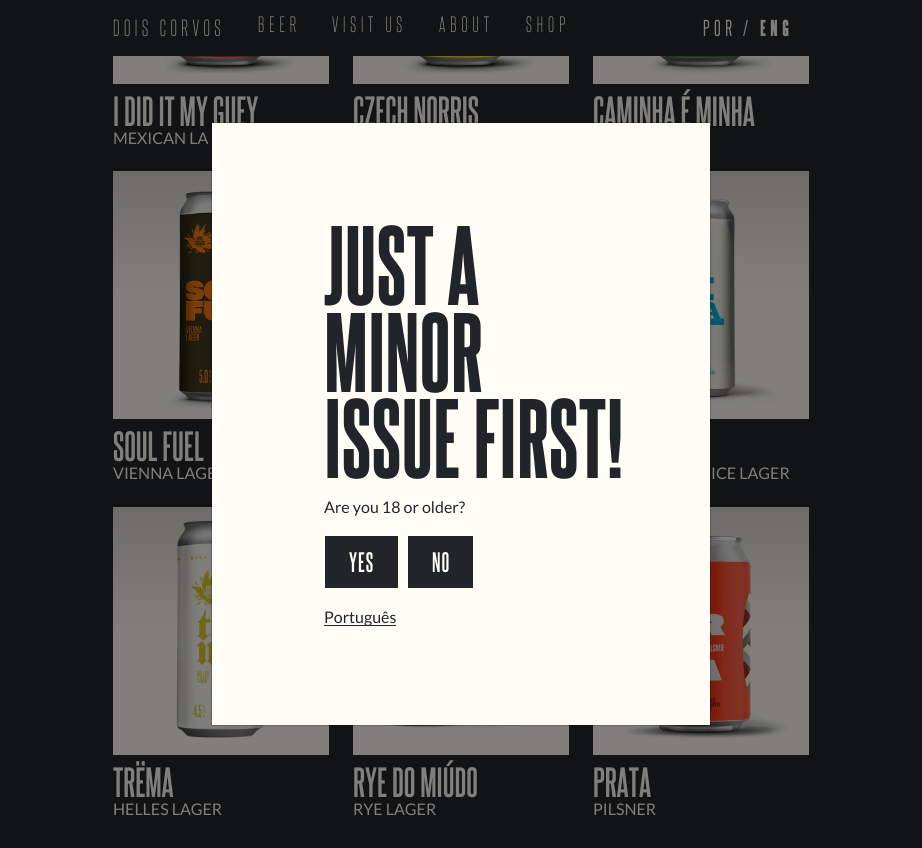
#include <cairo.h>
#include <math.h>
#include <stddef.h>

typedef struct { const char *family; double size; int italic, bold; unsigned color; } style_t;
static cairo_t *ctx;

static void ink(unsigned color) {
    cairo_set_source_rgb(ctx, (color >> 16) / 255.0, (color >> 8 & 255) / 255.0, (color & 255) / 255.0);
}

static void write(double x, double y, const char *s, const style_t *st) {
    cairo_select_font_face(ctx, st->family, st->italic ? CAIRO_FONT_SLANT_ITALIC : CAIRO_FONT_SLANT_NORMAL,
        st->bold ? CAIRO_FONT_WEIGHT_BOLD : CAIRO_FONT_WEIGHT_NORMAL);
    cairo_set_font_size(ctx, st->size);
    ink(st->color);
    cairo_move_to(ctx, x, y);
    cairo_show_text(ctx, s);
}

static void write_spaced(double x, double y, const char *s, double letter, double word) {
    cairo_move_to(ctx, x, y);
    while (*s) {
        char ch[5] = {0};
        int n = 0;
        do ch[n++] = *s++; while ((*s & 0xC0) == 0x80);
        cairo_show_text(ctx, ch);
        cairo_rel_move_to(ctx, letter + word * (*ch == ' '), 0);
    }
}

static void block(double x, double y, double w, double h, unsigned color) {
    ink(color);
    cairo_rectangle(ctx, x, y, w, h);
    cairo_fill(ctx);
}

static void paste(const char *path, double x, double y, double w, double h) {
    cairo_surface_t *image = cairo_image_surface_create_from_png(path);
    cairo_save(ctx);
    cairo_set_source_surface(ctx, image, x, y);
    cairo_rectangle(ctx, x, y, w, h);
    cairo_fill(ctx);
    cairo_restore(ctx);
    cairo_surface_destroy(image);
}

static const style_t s1 = {"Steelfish", 36, 0, 1, 0x807f7b};
static const style_t s2 = {"Lato", 16, 0, 0, 0x807f7b};
static const style_t s3 = {"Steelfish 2", 96, 0, 0, 0x212529};
static const style_t s4 = {"Lato", 16, 0, 0, 0x212529};

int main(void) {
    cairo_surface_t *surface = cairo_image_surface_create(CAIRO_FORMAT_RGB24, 922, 848);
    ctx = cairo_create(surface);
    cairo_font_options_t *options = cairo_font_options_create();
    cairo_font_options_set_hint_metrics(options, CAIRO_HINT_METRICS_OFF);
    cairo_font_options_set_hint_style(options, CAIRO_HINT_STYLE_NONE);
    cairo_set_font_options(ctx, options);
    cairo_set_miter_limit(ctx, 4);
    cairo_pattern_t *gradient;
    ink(0x111315);
    cairo_paint(ctx);
    cairo_select_font_face(ctx, "Steelfish", CAIRO_FONT_SLANT_NORMAL, CAIRO_FONT_WEIGHT_NORMAL);
    cairo_set_font_size(ctx, 20);
    ink(0x807f7b);
    write_spaced(113, 36, "DOIS CORVOS", 4.5, 0);
    cairo_set_font_size(ctx, 19);
    write_spaced(258, 32, "BEER", 5, 0);
    write_spaced(332, 32, "VISIT US", 4.75, 0);
    write_spaced(439, 32, "ABOUT", 5, 0);
    write_spaced(526, 32, "SHOP", 5, 0);
    cairo_select_font_face(ctx, "Steelfish 2", CAIRO_FONT_SLANT_NORMAL, CAIRO_FONT_WEIGHT_BOLD);
    write_spaced(703, 36, "POR", 5, 0);
    write_spaced(743, 36, "/", 4.75, 0);
    cairo_select_font_face(ctx, "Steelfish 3", CAIRO_FONT_SLANT_NORMAL, CAIRO_FONT_WEIGHT_BOLD);
    write_spaced(760, 36, "ENG", 5, 0);
    block(113, 56, 216, 28, 0x807f7b);
    paste("pic1.png", 165, 56, 130, 17);
    write(113, 126, "I DID IT MY GUEY", &s1);
    write(113, 144, "MEXICAN LA", &s2);
    block(353, 56, 216, 28, 0x807f7b);
    paste("pic2.png", 404, 56, 132, 18);
    write(353, 126, "CZECH NORRIS", &s1);
    block(593, 56, 216, 28, 0x807f7b);
    paste("pic3.png", 647, 56, 126, 17);
    write(593, 126, "CAMINHA É MINHA", &s1);
    gradient = cairo_pattern_create_linear(221, 419, 221, 171);
    cairo_pattern_add_color_stop_rgba(gradient, 0.5, 0.502, 0.498, 0.482, 1);
    cairo_pattern_add_color_stop_rgba(gradient, 1, 0.427, 0.424, 0.412, 1);
    cairo_set_source(ctx, gradient);
    cairo_pattern_destroy(gradient);
    cairo_rectangle(ctx, 113, 171, 99, 248);
    cairo_fill(ctx);
    paste("pic4.png", 168, 191, 44, 217);
    write(113, 461, "SOUL FUEL", &s1);
    write(113, 479, "VIENNA LAGE", &s2);
    gradient = cairo_pattern_create_linear(701, 419, 701, 171);
    cairo_pattern_add_color_stop_rgba(gradient, 0.5, 0.502, 0.498, 0.482, 1);
    cairo_pattern_add_color_stop_rgba(gradient, 1, 0.427, 0.424, 0.412, 1);
    cairo_set_source(ctx, gradient);
    cairo_pattern_destroy(gradient);
    cairo_rectangle(ctx, 710, 171, 99, 248);
    cairo_fill(ctx);
    paste("pic5.png", 710, 198, 67, 206);
    write(711, 479, "ICE LAGER", &s2);
    gradient = cairo_pattern_create_linear(221, 755, 221, 507);
    cairo_pattern_add_color_stop_rgba(gradient, 0.5, 0.502, 0.498, 0.482, 1);
    cairo_pattern_add_color_stop_rgba(gradient, 1, 0.427, 0.424, 0.412, 1);
    cairo_set_source(ctx, gradient);
    cairo_pattern_destroy(gradient);
    cairo_rectangle(ctx, 113, 507, 216, 248);
    cairo_fill(ctx);
    paste("pic6.png", 176, 520, 88, 218);
    write(113, 797, "TRËMA", &s1);
    write(113, 815, "HELLES LAGER", &s2);
    gradient = cairo_pattern_create_linear(461, 755, 461, 507);
    cairo_pattern_add_color_stop_rgba(gradient, 0.5, 0.502, 0.498, 0.482, 1);
    cairo_pattern_add_color_stop_rgba(gradient, 1, 0.427, 0.424, 0.412, 1);
    cairo_set_source(ctx, gradient);
    cairo_pattern_destroy(gradient);
    cairo_rectangle(ctx, 353, 725, 216, 30);
    cairo_fill(ctx);
    paste("pic7.png", 388, 725, 135, 4);
    write(353, 797, "RYE DO MIÚDO", &s1);
    write(353, 815, "RYE LAGER", &s2);
    gradient = cairo_pattern_create_linear(701, 755, 701, 507);
    cairo_pattern_add_color_stop_rgba(gradient, 0.5, 0.502, 0.498, 0.482, 1);
    cairo_pattern_add_color_stop_rgba(gradient, 1, 0.427, 0.424, 0.412, 1);
    cairo_set_source(ctx, gradient);
    cairo_pattern_destroy(gradient);
    cairo_rectangle(ctx, 593, 507, 216, 248);
    cairo_fill(ctx);
    paste("pic8.png", 625, 535, 166, 204);
    write(593, 797, "PRATA", &s1);
    write(593, 815, "PILSNER", &s2);
    block(212, 123, 498, 602, 0xfffdf6);
    cairo_rectangle(ctx, 211.5, 122.5, 499, 603);
    cairo_set_source_rgba(ctx, 0, 0, 0, 0.18);
    cairo_set_line_width(ctx, 1);
    cairo_stroke(ctx);
    write(324, 305, "JUST A", &s3);
    write(324, 392, "MINOR", &s3);
    write(324, 478, "ISSUE FIRST!", &s3);
    write(324, 513, "Are you 18 or older?", &s4);
    block(325, 536, 73, 52, 0x212529);
    cairo_select_font_face(ctx, "Steelfish", CAIRO_FONT_SLANT_NORMAL, CAIRO_FONT_WEIGHT_BOLD);
    cairo_set_font_size(ctx, 24);
    ink(0xfffdf6);
    write_spaced(349, 572, "YES", 1, 0);
    block(408, 536, 65, 52, 0x212529);
    ink(0xfffdf6);
    write_spaced(432, 572, "NO", 1, 0);
    block(324, 625, 72, 1, 0x212529);
    write(324, 623, "Português", &s4);
    cairo_surface_write_to_png(surface, "screenshot.png");
    cairo_font_options_destroy(options);
    cairo_destroy(ctx);
    cairo_surface_destroy(surface);
    return 0;
}
